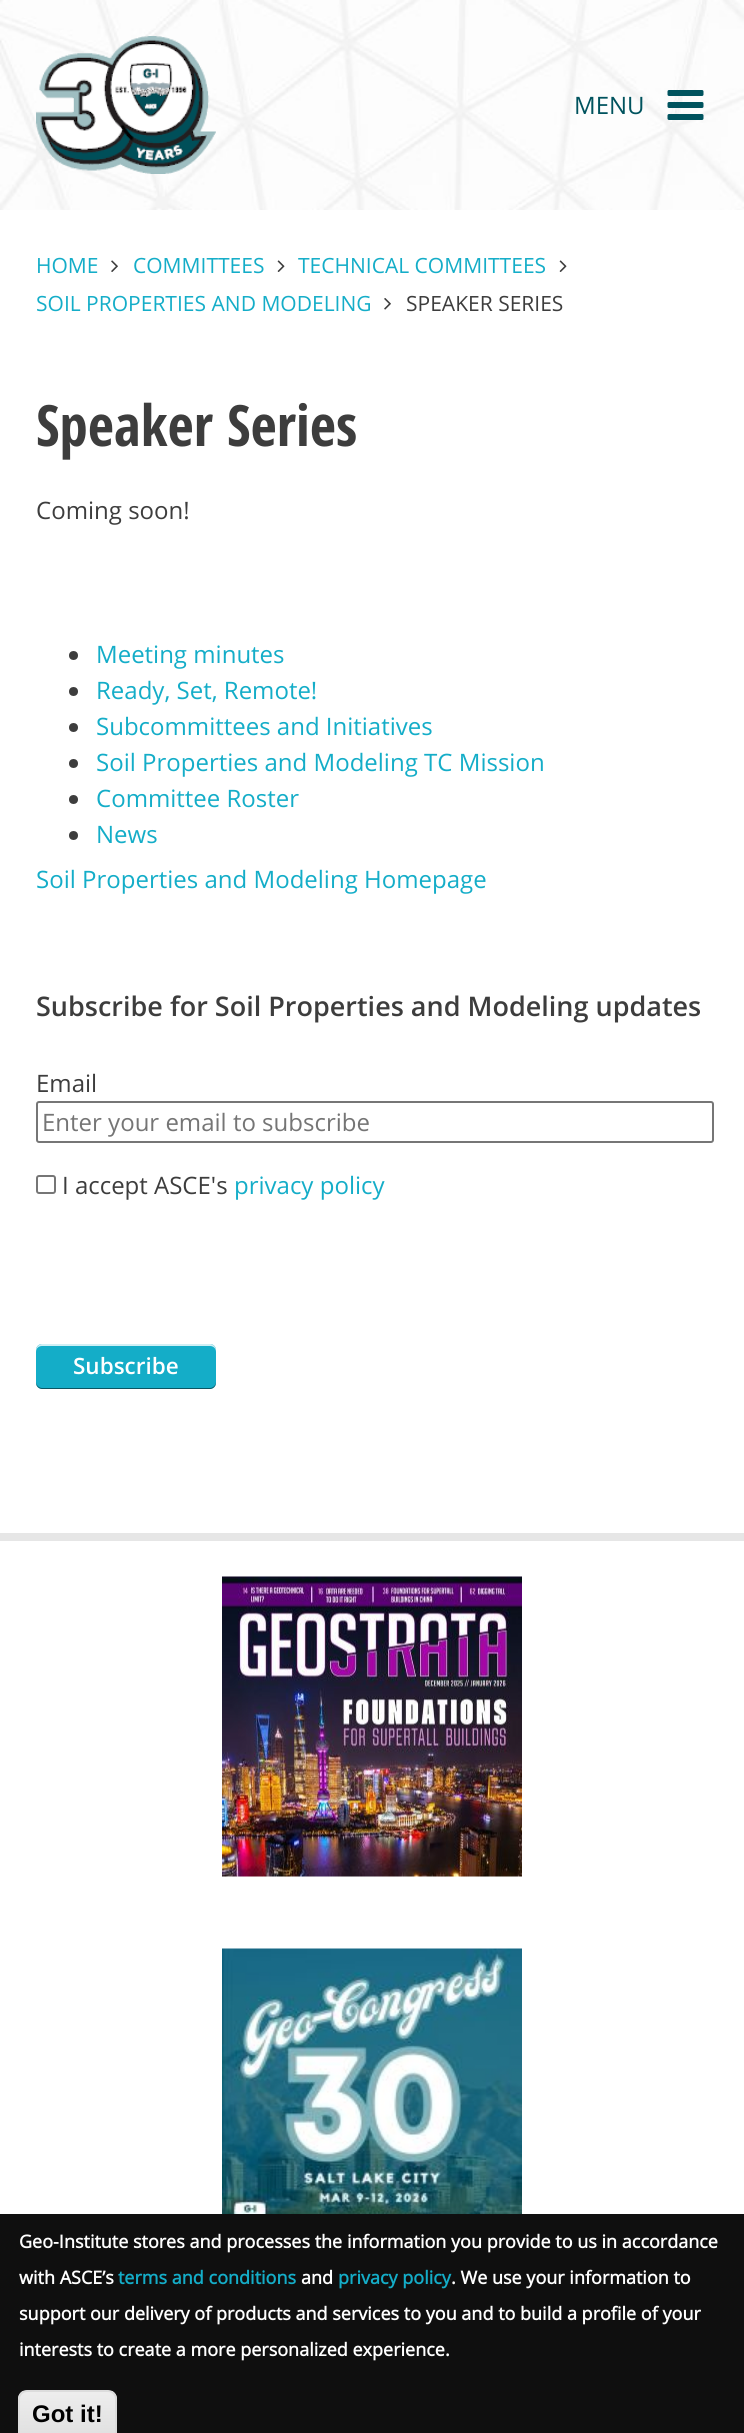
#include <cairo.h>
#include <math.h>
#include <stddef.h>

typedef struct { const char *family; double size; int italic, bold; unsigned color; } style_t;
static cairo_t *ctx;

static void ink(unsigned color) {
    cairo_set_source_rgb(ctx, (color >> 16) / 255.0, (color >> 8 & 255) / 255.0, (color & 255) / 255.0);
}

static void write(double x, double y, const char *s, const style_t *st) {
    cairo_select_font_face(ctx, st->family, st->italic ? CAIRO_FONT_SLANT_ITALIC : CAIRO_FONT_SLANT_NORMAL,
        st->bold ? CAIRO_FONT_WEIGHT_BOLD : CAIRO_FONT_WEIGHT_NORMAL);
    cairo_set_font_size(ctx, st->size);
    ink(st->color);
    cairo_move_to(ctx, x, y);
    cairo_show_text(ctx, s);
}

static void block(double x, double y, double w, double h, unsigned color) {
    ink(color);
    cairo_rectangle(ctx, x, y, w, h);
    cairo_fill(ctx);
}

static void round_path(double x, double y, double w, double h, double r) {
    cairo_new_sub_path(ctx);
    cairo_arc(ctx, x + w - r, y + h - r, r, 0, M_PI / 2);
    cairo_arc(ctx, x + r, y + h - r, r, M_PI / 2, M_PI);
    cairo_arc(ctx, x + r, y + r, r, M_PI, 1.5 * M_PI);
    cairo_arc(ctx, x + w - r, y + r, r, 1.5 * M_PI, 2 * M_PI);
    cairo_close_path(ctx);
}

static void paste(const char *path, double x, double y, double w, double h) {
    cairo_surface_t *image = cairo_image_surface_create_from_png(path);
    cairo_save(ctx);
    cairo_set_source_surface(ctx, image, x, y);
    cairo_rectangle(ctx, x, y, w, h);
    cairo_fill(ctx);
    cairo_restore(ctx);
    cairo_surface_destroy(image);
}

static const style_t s1 = {"Open Sans", 24, 0, 0, 0x00535e};
static const style_t s2 = {"Open Sans", 21, 0, 0, 0x14adc8};
static const style_t s3 = {"Open Sans", 21, 0, 0, 0x3d3d3d};
static const style_t s4 = {"Open Sans Condensed", 57, 0, 1, 0x3d3d3d};
static const style_t s5 = {"Open Sans", 24, 0, 0, 0x3d3d3d};
static const style_t s6 = {"Open Sans", 24, 0, 0, 0x14adc8};
static const style_t s7 = {"Open Sans SemiBold", 27, 0, 0, 0x3d3d3d};
static const style_t s8 = {"Open Sans", 24, 0, 0, 0x757575};
static const style_t s9 = {"Open Sans SemiBold", 22.5, 0, 0, 0xffffff};
static const style_t s10 = {"Open Sans", 18, 0, 1, 0xffffff};
static const style_t s11 = {"Open Sans", 18, 0, 1, 0x14adc8};
static const style_t s12 = {"Liberation Sans", 24, 0, 1, 0x000000};

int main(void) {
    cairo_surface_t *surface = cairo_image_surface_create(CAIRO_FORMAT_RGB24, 744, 2433);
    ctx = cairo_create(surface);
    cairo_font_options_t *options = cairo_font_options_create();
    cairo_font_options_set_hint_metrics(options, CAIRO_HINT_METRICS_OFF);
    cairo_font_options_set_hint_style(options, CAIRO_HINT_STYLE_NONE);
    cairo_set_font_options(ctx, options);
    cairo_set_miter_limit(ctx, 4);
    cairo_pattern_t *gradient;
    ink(0xffffff);
    cairo_paint(ctx);
    paste("pic1.png", 0, 0, 744, 210);
    paste("pic2.png", 36, 36, 180, 138);
    write(574, 114, "MENU", &s1);
    paste("pic3.png", 667, 90, 37, 30);
    write(36, 273, "HOME", &s2);
    paste("pic4.png", 111, 260, 7, 12);
    write(133, 273, "COMMITTEES", &s2);
    paste("pic5.png", 277, 260, 8, 12);
    write(298, 273, "TECHNICAL COMMITTEES", &s2);
    paste("pic5.png", 559, 260, 8, 12);
    write(36, 311, "SOIL PROPERTIES AND MODELING", &s2);
    paste("pic6.png", 384, 298, 7, 12);
    write(406, 311, "SPEAKER SERIES", &s3);
    write(36, 446, "Speaker Series", &s4);
    write(36, 519, "Coming soon!", &s5);
    cairo_new_path(ctx);
    cairo_arc(ctx, 73.5, 655.5, 4.5, 0, 2 * M_PI);
    cairo_fill(ctx);
    write(96, 663, "Meeting minutes", &s6);
    ink(0x3d3d3d);
    cairo_new_path(ctx);
    cairo_arc(ctx, 73.5, 691.5, 4.5, 0, 2 * M_PI);
    cairo_fill(ctx);
    write(96, 699, "Ready, Set, Remote!", &s6);
    ink(0x3d3d3d);
    cairo_new_path(ctx);
    cairo_arc(ctx, 73.5, 727.5, 4.5, 0, 2 * M_PI);
    cairo_fill(ctx);
    write(96, 735, "Subcommittees and Initiatives", &s6);
    ink(0x3d3d3d);
    cairo_new_path(ctx);
    cairo_arc(ctx, 73.5, 763.5, 4.5, 0, 2 * M_PI);
    cairo_fill(ctx);
    write(96, 771, "Soil Properties and Modeling TC Mission", &s6);
    ink(0x3d3d3d);
    cairo_new_path(ctx);
    cairo_arc(ctx, 73.5, 799.5, 4.5, 0, 2 * M_PI);
    cairo_fill(ctx);
    write(96, 807, "Committee Roster", &s6);
    ink(0x3d3d3d);
    cairo_new_path(ctx);
    cairo_arc(ctx, 73.5, 835.5, 4.5, 0, 2 * M_PI);
    cairo_fill(ctx);
    write(96, 843, "News", &s6);
    write(36, 888, "Soil Properties and Modeling Homepage", &s6);
    write(36, 1016, "Subscribe for Soil Properties and Modeling updates", &s7);
    write(36, 1092, "Email", &s5);
    round_path(37, 1102, 676, 40, 2);
    ink(0x767676);
    cairo_stroke(ctx);
    write(42, 1131, "Enter your email to subscribe", &s8);
    round_path(37, 1176, 18, 17, 2);
    ink(0x767676);
    cairo_stroke(ctx);
    write(62, 1194, "I accept ASCE's", &s5);
    write(234, 1194, "privacy policy", &s6);
    round_path(36, 1344, 180, 45, 6);
    cairo_fill(ctx);
    cairo_set_source_rgba(ctx, 1, 1, 1, 0.8);
    cairo_new_path(ctx);
    cairo_move_to(ctx, 42, 1346);
    cairo_line_to(ctx, 210, 1346);
    cairo_curve_to(ctx, 213, 1346, 216, 1348, 216, 1352);
    cairo_line_to(ctx, 216, 1350);
    cairo_curve_to(ctx, 216, 1347, 213, 1344, 210, 1344);
    cairo_line_to(ctx, 42, 1344);
    cairo_curve_to(ctx, 39, 1344, 36, 1347, 36, 1350);
    cairo_line_to(ctx, 36, 1352);
    cairo_curve_to(ctx, 36, 1348, 39, 1346, 42, 1346);
    cairo_close_path(ctx);
    cairo_fill(ctx);
    cairo_set_source_rgba(ctx, 0, 0, 0, 0.5);
    cairo_new_path(ctx);
    cairo_move_to(ctx, 36, 1382);
    cairo_line_to(ctx, 36, 1383);
    cairo_curve_to(ctx, 36, 1386, 39, 1389, 42, 1389);
    cairo_line_to(ctx, 210, 1389);
    cairo_curve_to(ctx, 213, 1389, 216, 1386, 216, 1383);
    cairo_line_to(ctx, 216, 1382);
    cairo_curve_to(ctx, 216, 1385, 213, 1388, 210, 1388);
    cairo_line_to(ctx, 42, 1388);
    cairo_curve_to(ctx, 39, 1388, 36, 1385, 36, 1382);
    cairo_close_path(ctx);
    cairo_fill(ctx);
    write(73, 1374, "Subscribe", &s9);
    block(0, 1533, 744, 8, 0xe6e6e6);
    paste("pic7.png", 222, 1576, 300, 301);
    paste("pic8.png", 222, 1948, 300, 266);
    block(0, 2214, 744, 219, 0x0f0f0f);
    write(19, 2248, "Geo-Institute stores and processes the information you provide to us in accordance", &s10);
    write(19, 2284, "with ASCE’s", &s10);
    write(118, 2284, "terms and conditions", &s11);
    write(301, 2284, "and", &s10);
    write(338, 2284, "privacy policy", &s11);
    write(451, 2284, ". We use your information to", &s10);
    write(19, 2320, "support our delivery of products and services to you and to build a profile of your", &s10);
    write(19, 2356, "interests to create a more personalized experience.", &s10);
    cairo_save(ctx);
    round_path(18, 2390, 99, 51, 9);
    cairo_clip(ctx);
    gradient = cairo_pattern_create_linear(68, 2391, 68, 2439);
    cairo_pattern_add_color_stop_rgba(gradient, 0.05, 0.929, 0.929, 0.929, 1);
    cairo_pattern_add_color_stop_rgba(gradient, 1, 0.875, 0.875, 0.875, 1);
    cairo_set_source(ctx, gradient);
    cairo_pattern_destroy(gradient);
    cairo_rectangle(ctx, 18, 2391, 99, 42);
    cairo_fill(ctx);
    cairo_restore(ctx);
    round_path(19, 2391, 97, 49, 8);
    ink(0xdcdcdc);
    cairo_stroke(ctx);
    write(32, 2422, "Got it!", &s12);
    cairo_surface_write_to_png(surface, "screenshot.png");
    cairo_font_options_destroy(options);
    cairo_destroy(ctx);
    cairo_surface_destroy(surface);
    return 0;
}
